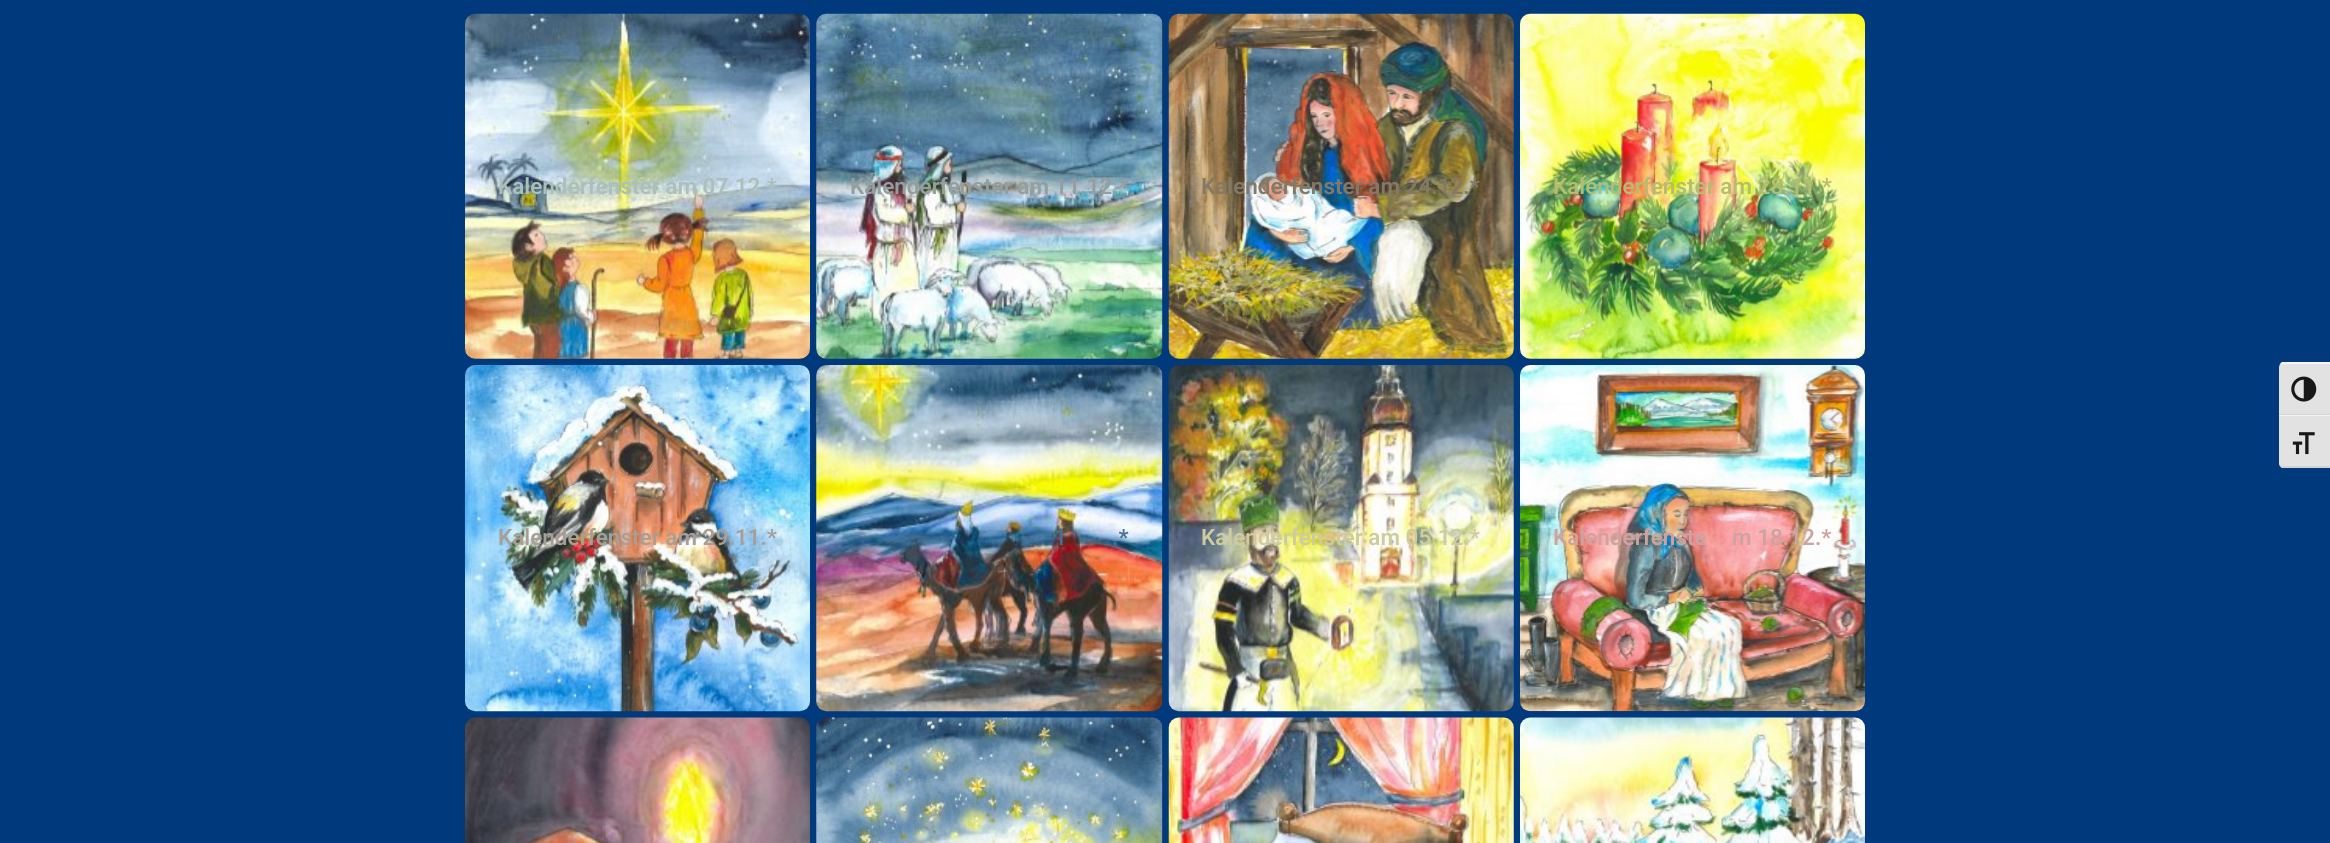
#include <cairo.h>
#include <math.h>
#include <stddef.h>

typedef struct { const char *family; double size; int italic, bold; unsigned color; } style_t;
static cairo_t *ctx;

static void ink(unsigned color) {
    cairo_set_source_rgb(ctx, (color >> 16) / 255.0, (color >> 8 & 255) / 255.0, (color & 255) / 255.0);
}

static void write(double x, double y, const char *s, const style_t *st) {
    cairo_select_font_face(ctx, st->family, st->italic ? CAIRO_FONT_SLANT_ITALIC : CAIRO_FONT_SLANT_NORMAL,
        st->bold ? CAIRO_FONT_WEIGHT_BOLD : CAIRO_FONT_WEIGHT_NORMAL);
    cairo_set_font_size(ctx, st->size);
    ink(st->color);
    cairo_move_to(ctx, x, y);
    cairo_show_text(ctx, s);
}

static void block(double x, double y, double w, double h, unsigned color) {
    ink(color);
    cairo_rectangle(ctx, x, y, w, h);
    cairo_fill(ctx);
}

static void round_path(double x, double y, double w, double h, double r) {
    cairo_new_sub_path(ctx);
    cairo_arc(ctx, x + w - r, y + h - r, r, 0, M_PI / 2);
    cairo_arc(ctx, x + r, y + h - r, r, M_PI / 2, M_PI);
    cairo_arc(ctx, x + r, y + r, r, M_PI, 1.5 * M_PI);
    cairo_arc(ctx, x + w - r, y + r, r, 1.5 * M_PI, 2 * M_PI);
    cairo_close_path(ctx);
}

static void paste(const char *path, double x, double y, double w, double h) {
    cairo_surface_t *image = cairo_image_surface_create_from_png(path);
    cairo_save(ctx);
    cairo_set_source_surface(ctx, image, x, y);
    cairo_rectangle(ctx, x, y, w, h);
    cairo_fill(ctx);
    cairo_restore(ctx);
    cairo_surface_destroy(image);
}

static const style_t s1 = {"Roboto SemiBold", 22.5, 0, 0, 0xacbfbb};
static const style_t s2 = {"Roboto SemiBold", 22.5, 0, 0, 0x929ea0};
static const style_t s3 = {"Roboto SemiBold", 22.5, 0, 0, 0x847967};
static const style_t s4 = {"Roboto SemiBold", 22.5, 0, 0, 0xb6bc70};
static const style_t s5 = {"Roboto SemiBold", 22.5, 0, 0, 0xa89e95};
static const style_t s6 = {"Roboto SemiBold", 22.5, 0, 0, 0x476f91};
static const style_t s7 = {"Roboto SemiBold", 22.5, 0, 0, 0xcdcc9e};
static const style_t s8 = {"Roboto SemiBold", 22.5, 0, 0, 0xcea39f};

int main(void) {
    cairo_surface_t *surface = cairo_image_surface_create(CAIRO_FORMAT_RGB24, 2330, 843);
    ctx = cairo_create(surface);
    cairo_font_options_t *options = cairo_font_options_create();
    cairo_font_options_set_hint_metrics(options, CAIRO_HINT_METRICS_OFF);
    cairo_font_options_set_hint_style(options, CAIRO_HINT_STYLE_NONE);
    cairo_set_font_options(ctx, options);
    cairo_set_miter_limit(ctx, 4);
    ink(0x00397c);
    cairo_paint(ctx);
    ink(0x003370);
    round_path(465, 14, 345, 345, 10);
    cairo_fill(ctx);
    paste("pic1.png", 465, 13, 345, 346);
    write(498, 194, "Kalenderfenster am 07.12.*", &s1);
    ink(0x003370);
    round_path(816, 14, 347, 345, 10);
    cairo_fill(ctx);
    paste("pic2.png", 816, 13, 347, 346);
    write(850, 194, "Kalenderfenster am 11.12.*", &s2);
    ink(0x003370);
    round_path(1169, 14, 345, 345, 10);
    cairo_fill(ctx);
    paste("pic3.png", 1168, 13, 346, 346);
    write(1201, 194, "Kalenderfenster am 24.12.*", &s3);
    ink(0x003370);
    round_path(1520, 14, 345, 345, 10);
    cairo_fill(ctx);
    paste("pic4.png", 1520, 13, 345, 346);
    write(1553, 194, "Kalenderfenster am 28.11.*", &s4);
    ink(0x003370);
    round_path(465, 365, 345, 346, 10);
    cairo_fill(ctx);
    paste("pic5.png", 465, 365, 345, 347);
    write(498, 545, "Kalenderfenster am 29.11.*", &s5);
    ink(0x003370);
    round_path(816, 365, 347, 346, 10);
    cairo_fill(ctx);
    paste("pic6.png", 816, 365, 347, 347);
    write(1054, 545, "1", &s6);
    write(1112, 545, ".*", &s6);
    ink(0x003370);
    round_path(1169, 365, 345, 346, 10);
    cairo_fill(ctx);
    paste("pic7.png", 1168, 365, 346, 347);
    write(1201, 545, "Kalenderfenster am 05.12.*", &s7);
    ink(0x003370);
    round_path(1520, 365, 345, 346, 10);
    cairo_fill(ctx);
    paste("pic8.png", 1520, 365, 345, 347);
    write(1553, 545, "Kalenderfenste", &s8);
    write(1732, 545, "m 18.12.*", &s8);
    paste("pic9.png", 465, 717, 345, 126);
    ink(0x003370);
    round_path(816, 718, 347, 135, 10);
    cairo_fill(ctx);
    paste("pic10.png", 816, 717, 347, 126);
    round_path(1169, 718, 345, 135, 10);
    cairo_fill(ctx);
    paste("pic11.png", 1168, 717, 346, 126);
    paste("pic12.png", 1520, 717, 345, 126);
    ink(0xe2e2e2);
    cairo_new_path(ctx);
    cairo_move_to(ctx, 2284, 363);
    cairo_line_to(ctx, 2330, 363);
    cairo_line_to(ctx, 2330, 415);
    cairo_line_to(ctx, 2279, 415);
    cairo_line_to(ctx, 2279, 368);
    cairo_curve_to(ctx, 2279, 365, 2281, 363, 2284, 363);
    cairo_close_path(ctx);
    cairo_fill(ctx);
    ink(0xf5f5f5);
    cairo_new_path(ctx);
    cairo_move_to(ctx, 2284, 364);
    cairo_line_to(ctx, 2330, 364);
    cairo_line_to(ctx, 2330, 362);
    cairo_line_to(ctx, 2282, 362);
    cairo_curve_to(ctx, 2280, 363, 2279, 366, 2279, 368);
    cairo_curve_to(ctx, 2279, 365, 2281, 364, 2284, 364);
    cairo_close_path(ctx);
    cairo_fill(ctx);
    block(2279, 414, 51, 1, 0xd2d2d2);
    paste("pic13.png", 2291, 376, 26, 26);
    ink(0xe2e2e2);
    cairo_new_path(ctx);
    cairo_move_to(ctx, 2279, 415);
    cairo_line_to(ctx, 2330, 415);
    cairo_line_to(ctx, 2330, 468);
    cairo_line_to(ctx, 2284, 468);
    cairo_curve_to(ctx, 2281, 468, 2279, 466, 2279, 463);
    cairo_close_path(ctx);
    cairo_fill(ctx);
    block(2279, 415, 51, 1, 0xf5f5f5);
    ink(0xd2d2d2);
    cairo_new_path(ctx);
    cairo_move_to(ctx, 2330, 468);
    cairo_line_to(ctx, 2282, 468);
    cairo_curve_to(ctx, 2280, 467, 2279, 464, 2279, 462);
    cairo_curve_to(ctx, 2279, 465, 2281, 466, 2284, 466);
    cairo_line_to(ctx, 2330, 466);
    cairo_close_path(ctx);
    cairo_fill(ctx);
    paste("pic14.png", 2292, 432, 23, 23);
    cairo_surface_write_to_png(surface, "screenshot.png");
    cairo_font_options_destroy(options);
    cairo_destroy(ctx);
    cairo_surface_destroy(surface);
    return 0;
}
